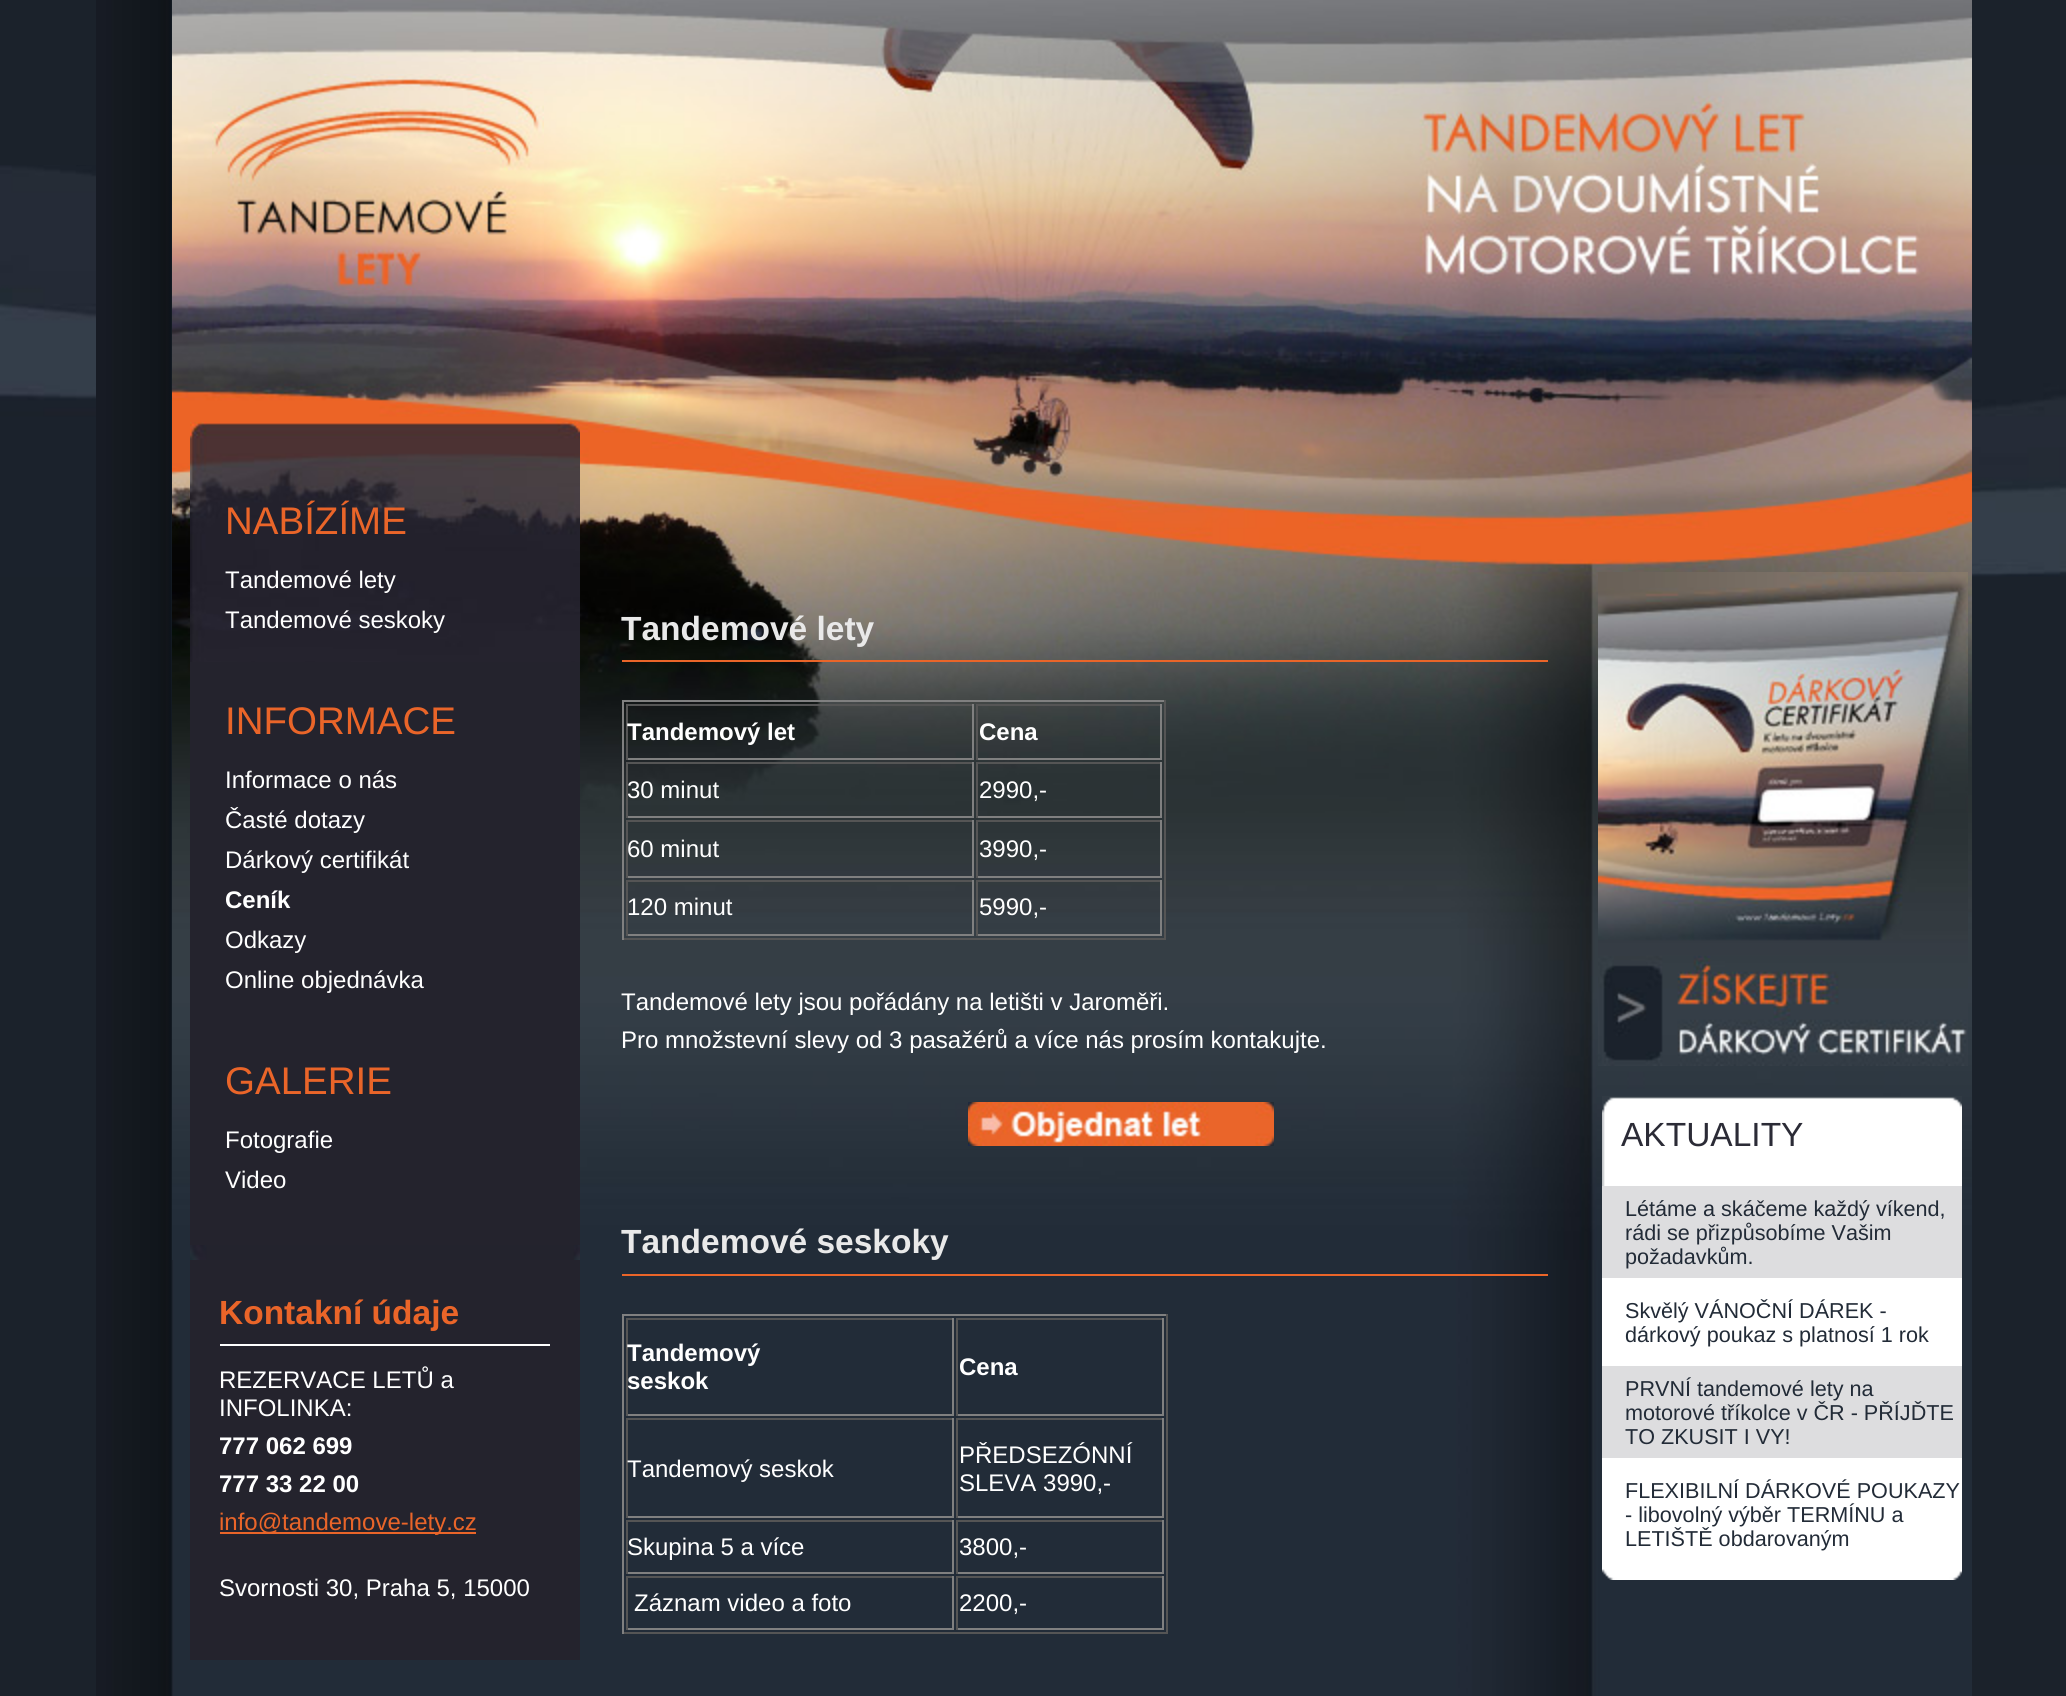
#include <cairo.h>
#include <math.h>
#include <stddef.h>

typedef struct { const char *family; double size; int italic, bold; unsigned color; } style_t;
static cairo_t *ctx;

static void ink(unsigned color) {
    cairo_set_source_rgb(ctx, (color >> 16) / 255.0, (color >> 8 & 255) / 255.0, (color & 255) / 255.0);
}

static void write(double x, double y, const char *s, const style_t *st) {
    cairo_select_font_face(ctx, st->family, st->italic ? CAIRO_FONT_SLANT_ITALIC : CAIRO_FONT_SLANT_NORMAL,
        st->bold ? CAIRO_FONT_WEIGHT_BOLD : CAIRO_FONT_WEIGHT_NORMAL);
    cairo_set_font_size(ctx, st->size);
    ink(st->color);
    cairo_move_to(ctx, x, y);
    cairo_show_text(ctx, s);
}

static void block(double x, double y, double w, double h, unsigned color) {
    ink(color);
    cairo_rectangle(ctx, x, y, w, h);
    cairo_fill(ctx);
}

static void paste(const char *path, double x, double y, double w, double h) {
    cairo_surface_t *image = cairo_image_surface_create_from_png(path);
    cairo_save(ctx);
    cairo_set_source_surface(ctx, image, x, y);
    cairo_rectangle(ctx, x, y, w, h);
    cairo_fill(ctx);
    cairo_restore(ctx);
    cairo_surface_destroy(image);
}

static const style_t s1 = {"Liberation Sans", 38.5, 0, 0, 0xea6529};
static const style_t s2 = {"Liberation Sans", 24, 0, 0, 0xffffff};
static const style_t s3 = {"Liberation Sans", 24, 0, 1, 0xffffff};
static const style_t s4 = {"Liberation Sans", 33.5, 0, 1, 0xea6529};
static const style_t s5 = {"Liberation Sans", 24, 0, 0, 0xea6529};
static const style_t s6 = {"Liberation Sans", 33.5, 0, 1, 0xe9e9e9};
static const style_t s7 = {"Liberation Sans", 33.5, 0, 0, 0x2b2b36};
static const style_t s8 = {"Liberation Sans", 21.6, 0, 0, 0x222b37};

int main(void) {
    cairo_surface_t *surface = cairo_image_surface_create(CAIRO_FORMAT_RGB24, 2066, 1696);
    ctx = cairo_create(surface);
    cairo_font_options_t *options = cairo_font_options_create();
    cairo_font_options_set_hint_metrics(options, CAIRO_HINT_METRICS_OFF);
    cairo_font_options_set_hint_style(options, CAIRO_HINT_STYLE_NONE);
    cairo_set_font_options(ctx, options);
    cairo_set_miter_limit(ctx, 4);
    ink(0x1b222b);
    cairo_paint(ctx);
    paste("pic1.png", 0, 165, 2066, 412);
    paste("pic2.png", 96, 0, 1876, 1696);
    paste("pic3.png", 172, 0, 1800, 1260);
    paste("pic4.png", 212, 74, 332, 216);
    block(190, 662, 390, 998, 0x24232d);
    paste("pic5.png", 190, 422, 390, 240);
    paste("pic6.png", 190, 1245, 390, 15);
    write(225, 534, "NABÍZÍME", &s1);
    write(225, 588, "Tandemové lety", &s2);
    write(225, 628, "Tandemové seskoky", &s2);
    write(225, 734, "INFORMACE", &s1);
    write(225, 788, "Informace o nás", &s2);
    write(225, 828, "Časté dotazy", &s2);
    write(225, 868, "Dárkový certifikát", &s2);
    write(225, 908, "Ceník", &s3);
    write(225, 948, "Odkazy", &s2);
    write(225, 988, "Online objednávka", &s2);
    write(225, 1094, "GALERIE", &s1);
    write(225, 1148, "Fotografie", &s2);
    write(225, 1188, "Video", &s2);
    block(220, 1344, 330, 2, 0xffffff);
    write(219, 1324, "Kontakní údaje", &s4);
    write(219, 1388, "REZERVACE LETŮ a", &s2);
    write(219, 1416, "INFOLINKA:", &s2);
    write(219, 1454, "777 062 699", &s3);
    write(219, 1492, "777 33 22 00", &s3);
    block(220, 1532, 256, 2, 0xea6529);
    write(219, 1530, "info@tandemove-lety.cz", &s5);
    write(219, 1596, "Svornosti 30, Praha 5, 15000", &s2);
    block(622, 660, 926, 2, 0xea6529);
    write(621, 640, "Tandemové lety", &s6);
    block(622, 700, 544, 2, 0x808080);
    block(1164, 700, 2, 240, 0x555555);
    block(622, 938, 544, 2, 0x555555);
    block(622, 700, 2, 240, 0x808080);
    block(626, 704, 348, 2, 0x555555);
    block(972, 704, 2, 56, 0x808080);
    block(626, 758, 348, 2, 0x808080);
    block(626, 704, 2, 56, 0x555555);
    write(627, 740, "Tandemový let", &s3);
    block(976, 704, 186, 2, 0x555555);
    block(1160, 704, 2, 56, 0x808080);
    block(976, 758, 186, 2, 0x808080);
    block(976, 704, 2, 56, 0x555555);
    write(979, 740, "Cena", &s3);
    block(626, 762, 348, 2, 0x555555);
    block(972, 762, 2, 56, 0x808080);
    block(626, 816, 348, 2, 0x808080);
    block(626, 762, 2, 56, 0x555555);
    write(627, 798, "30 minut", &s2);
    block(976, 762, 186, 2, 0x555555);
    block(1160, 762, 2, 56, 0x808080);
    block(976, 816, 186, 2, 0x808080);
    block(976, 762, 2, 56, 0x555555);
    write(979, 798, "2990,-", &s2);
    block(626, 820, 348, 2, 0x555555);
    block(972, 820, 2, 58, 0x808080);
    block(626, 876, 348, 2, 0x808080);
    block(626, 820, 2, 58, 0x555555);
    write(627, 857, "60 minut", &s2);
    block(976, 820, 186, 2, 0x555555);
    block(1160, 820, 2, 58, 0x808080);
    block(976, 876, 186, 2, 0x808080);
    block(976, 820, 2, 58, 0x555555);
    write(979, 857, "3990,-", &s2);
    block(626, 880, 348, 2, 0x555555);
    block(972, 880, 2, 56, 0x808080);
    block(626, 934, 348, 2, 0x808080);
    block(626, 880, 2, 56, 0x555555);
    write(627, 915, "120 minut", &s2);
    block(976, 880, 186, 2, 0x555555);
    block(1160, 880, 2, 56, 0x808080);
    block(976, 934, 186, 2, 0x808080);
    block(976, 880, 2, 56, 0x555555);
    write(979, 915, "5990,-", &s2);
    write(621, 1010, "Tandemové lety jsou pořádány na letišti v Jaroměři.", &s2);
    write(621, 1048, "Pro množstevní slevy od 3 pasažérů a více nás prosím kontakujte.", &s2);
    paste("pic7.png", 968, 1102, 306, 44);
    block(622, 1274, 926, 2, 0xea6529);
    write(621, 1253, "Tandemové seskoky", &s6);
    block(622, 1314, 546, 2, 0x808080);
    block(1166, 1314, 2, 320, 0x555555);
    block(622, 1632, 546, 2, 0x555555);
    block(622, 1314, 2, 320, 0x808080);
    block(626, 1318, 328, 2, 0x555555);
    block(952, 1318, 2, 98, 0x808080);
    block(626, 1414, 328, 2, 0x808080);
    block(626, 1318, 2, 98, 0x555555);
    write(627, 1361, "Tandemový", &s3);
    write(627, 1389, "seskok", &s3);
    block(956, 1318, 208, 2, 0x555555);
    block(1162, 1318, 2, 98, 0x808080);
    block(956, 1414, 208, 2, 0x808080);
    block(956, 1318, 2, 98, 0x555555);
    write(959, 1375, "Cena", &s3);
    block(626, 1418, 328, 2, 0x555555);
    block(952, 1418, 2, 100, 0x808080);
    block(626, 1516, 328, 2, 0x808080);
    block(626, 1418, 2, 100, 0x555555);
    write(627, 1477, "Tandemový seskok", &s2);
    block(956, 1418, 208, 2, 0x555555);
    block(1162, 1418, 2, 100, 0x808080);
    block(956, 1516, 208, 2, 0x808080);
    block(956, 1418, 2, 100, 0x555555);
    write(959, 1463, "PŘEDSEZÓNNÍ", &s2);
    write(959, 1491, "SLEVA 3990,-", &s2);
    block(626, 1520, 328, 2, 0x555555);
    block(952, 1520, 2, 54, 0x808080);
    block(626, 1572, 328, 2, 0x808080);
    block(626, 1520, 2, 54, 0x555555);
    write(627, 1555, "Skupina 5 a více", &s2);
    block(956, 1520, 208, 2, 0x555555);
    block(1162, 1520, 2, 54, 0x808080);
    block(956, 1572, 208, 2, 0x808080);
    block(956, 1520, 2, 54, 0x555555);
    write(959, 1555, "3800,-", &s2);
    block(626, 1576, 328, 2, 0x555555);
    block(952, 1576, 2, 54, 0x808080);
    block(626, 1628, 328, 2, 0x808080);
    block(626, 1576, 2, 54, 0x555555);
    write(634, 1611, "Záznam video a foto", &s2);
    block(956, 1576, 208, 2, 0x555555);
    block(1162, 1576, 2, 54, 0x808080);
    block(956, 1628, 208, 2, 0x808080);
    block(956, 1576, 2, 54, 0x555555);
    write(959, 1611, "2200,-", &s2);
    paste("pic8.png", 1598, 572, 370, 494);
    block(1602, 1278, 360, 291, 0xffffff);
    paste("pic9.png", 1602, 1096, 360, 90);
    write(1621, 1146, "AKTUALITY", &s7);
    paste("pic10.png", 1602, 1569, 360, 11);
    block(1602, 1186, 360, 92, 0xdddddf);
    write(1625, 1216, "Létáme a skáčeme každý víkend,", &s8);
    write(1625, 1240, "rádi se přizpůsobíme Vašim", &s8);
    write(1625, 1264, "požadavkům.", &s8);
    write(1625, 1318, "Skvělý VÁNOČNÍ DÁREK -", &s8);
    write(1625, 1342, "dárkový poukaz s platnosí 1 rok", &s8);
    block(1602, 1366, 360, 92, 0xdddddf);
    write(1625, 1396, "PRVNÍ tandemové lety na", &s8);
    write(1625, 1420, "motorové tříkolce v ČR - PŘÍJĎTE", &s8);
    write(1625, 1444, "TO ZKUSIT I VY!", &s8);
    write(1625, 1498, "FLEXIBILNÍ DÁRKOVÉ POUKAZY", &s8);
    write(1625, 1522, "- libovolný výběr TERMÍNU a", &s8);
    write(1625, 1546, "LETIŠTĚ obdarovaným", &s8);
    cairo_surface_write_to_png(surface, "screenshot.png");
    cairo_font_options_destroy(options);
    cairo_destroy(ctx);
    cairo_surface_destroy(surface);
    return 0;
}
